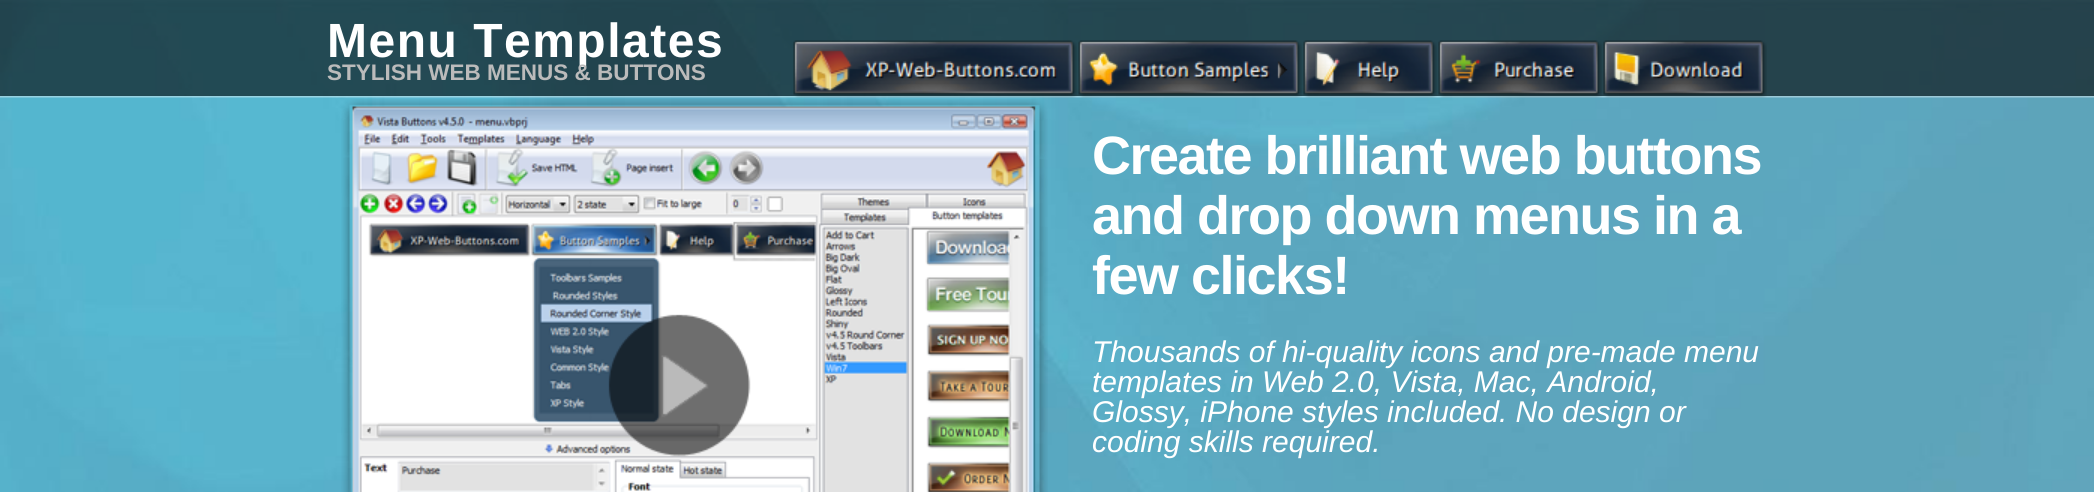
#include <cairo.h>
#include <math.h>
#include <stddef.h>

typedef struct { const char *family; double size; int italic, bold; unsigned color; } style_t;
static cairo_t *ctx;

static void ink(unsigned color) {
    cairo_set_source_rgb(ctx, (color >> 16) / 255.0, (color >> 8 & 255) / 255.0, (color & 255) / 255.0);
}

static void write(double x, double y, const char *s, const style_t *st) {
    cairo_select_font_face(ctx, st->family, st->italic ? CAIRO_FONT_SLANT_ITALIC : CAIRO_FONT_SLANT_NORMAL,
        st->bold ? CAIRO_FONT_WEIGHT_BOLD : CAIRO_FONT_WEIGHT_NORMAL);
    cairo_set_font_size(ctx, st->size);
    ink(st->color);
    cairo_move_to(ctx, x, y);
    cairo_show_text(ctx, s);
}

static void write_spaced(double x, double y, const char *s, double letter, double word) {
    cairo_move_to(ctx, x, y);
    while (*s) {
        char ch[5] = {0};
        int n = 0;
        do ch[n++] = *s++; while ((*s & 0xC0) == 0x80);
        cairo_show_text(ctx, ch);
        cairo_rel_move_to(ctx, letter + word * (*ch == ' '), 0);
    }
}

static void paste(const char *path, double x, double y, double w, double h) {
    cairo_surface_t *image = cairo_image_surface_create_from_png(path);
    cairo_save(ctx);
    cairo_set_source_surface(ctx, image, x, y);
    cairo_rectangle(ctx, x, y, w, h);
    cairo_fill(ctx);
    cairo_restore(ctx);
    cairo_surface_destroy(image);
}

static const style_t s1 = {"Liberation Sans", 22.5, 0, 1, 0xbbbbbb};
static const style_t s2 = {"Liberation Sans", 30, 1, 0, 0xffffff};

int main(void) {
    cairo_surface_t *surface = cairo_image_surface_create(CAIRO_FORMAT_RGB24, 2094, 492);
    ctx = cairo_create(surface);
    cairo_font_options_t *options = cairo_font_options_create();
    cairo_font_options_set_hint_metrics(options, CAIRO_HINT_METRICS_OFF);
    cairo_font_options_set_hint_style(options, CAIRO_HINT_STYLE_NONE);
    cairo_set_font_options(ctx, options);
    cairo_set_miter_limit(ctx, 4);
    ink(0xffffff);
    cairo_paint(ctx);
    paste("pic1.png", 0, 0, 2094, 492);
    cairo_set_source_rgba(ctx, 0, 0, 0, 0.6);
    cairo_rectangle(ctx, 0, 0, 2094, 96);
    cairo_fill(ctx);
    cairo_select_font_face(ctx, "Liberation Sans", CAIRO_FONT_SLANT_NORMAL, CAIRO_FONT_WEIGHT_BOLD);
    cairo_set_font_size(ctx, 48);
    ink(0xffffff);
    write_spaced(327, 57, "Menu Templates", 1.5, 0);
    write(327, 80, "STYLISH WEB MENUS & BUTTONS", &s1);
    paste("pic7.png", 0, 96, 2094, 2);
    paste("pic2.png", 793, 40, 284, 58);
    paste("pic3.png", 1078, 40, 224, 58);
    paste("pic4.png", 1303, 40, 134, 58);
    paste("pic5.png", 1438, 40, 164, 58);
    paste("pic6.png", 1603, 40, 164, 58);
    paste("pic8.png", 341, 99, 707, 393);
    paste("pic9.png", 608, 314, 143, 143);
    cairo_set_font_size(ctx, 54);
    ink(0xffffff);
    write_spaced(1092, 174, "Create brilliant web buttons", -1.5, 0);
    write_spaced(1092, 234, "and drop down menus in a", -1.5, 0);
    write_spaced(1092, 294, "few clicks!", -1.5, 0);
    write(1092, 362, "Thousands of hi-quality icons and pre-made menu", &s2);
    write(1092, 392, "templates in Web 2.0, Vista, Mac, Android,", &s2);
    write(1092, 422, "Glossy, iPhone styles included. No design or", &s2);
    write(1092, 452, "coding skills required.", &s2);
    cairo_surface_write_to_png(surface, "screenshot.png");
    cairo_font_options_destroy(options);
    cairo_destroy(ctx);
    cairo_surface_destroy(surface);
    return 0;
}
